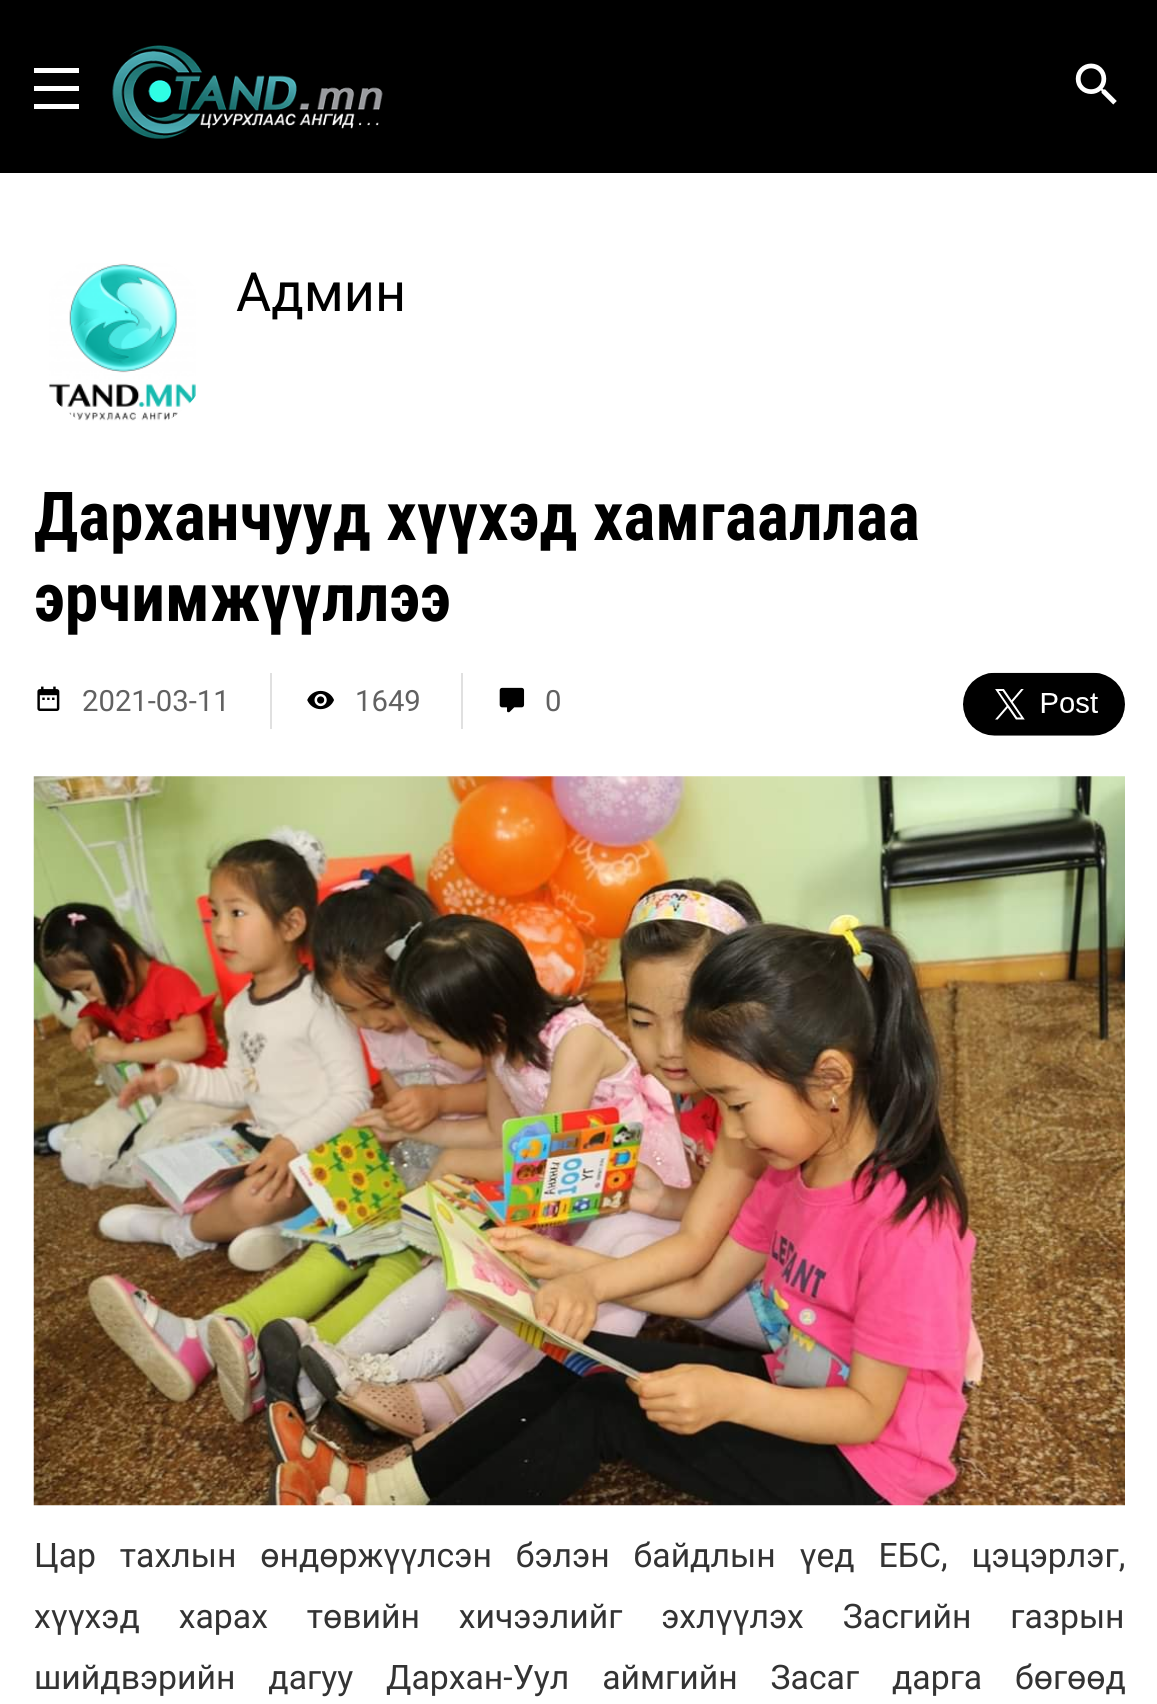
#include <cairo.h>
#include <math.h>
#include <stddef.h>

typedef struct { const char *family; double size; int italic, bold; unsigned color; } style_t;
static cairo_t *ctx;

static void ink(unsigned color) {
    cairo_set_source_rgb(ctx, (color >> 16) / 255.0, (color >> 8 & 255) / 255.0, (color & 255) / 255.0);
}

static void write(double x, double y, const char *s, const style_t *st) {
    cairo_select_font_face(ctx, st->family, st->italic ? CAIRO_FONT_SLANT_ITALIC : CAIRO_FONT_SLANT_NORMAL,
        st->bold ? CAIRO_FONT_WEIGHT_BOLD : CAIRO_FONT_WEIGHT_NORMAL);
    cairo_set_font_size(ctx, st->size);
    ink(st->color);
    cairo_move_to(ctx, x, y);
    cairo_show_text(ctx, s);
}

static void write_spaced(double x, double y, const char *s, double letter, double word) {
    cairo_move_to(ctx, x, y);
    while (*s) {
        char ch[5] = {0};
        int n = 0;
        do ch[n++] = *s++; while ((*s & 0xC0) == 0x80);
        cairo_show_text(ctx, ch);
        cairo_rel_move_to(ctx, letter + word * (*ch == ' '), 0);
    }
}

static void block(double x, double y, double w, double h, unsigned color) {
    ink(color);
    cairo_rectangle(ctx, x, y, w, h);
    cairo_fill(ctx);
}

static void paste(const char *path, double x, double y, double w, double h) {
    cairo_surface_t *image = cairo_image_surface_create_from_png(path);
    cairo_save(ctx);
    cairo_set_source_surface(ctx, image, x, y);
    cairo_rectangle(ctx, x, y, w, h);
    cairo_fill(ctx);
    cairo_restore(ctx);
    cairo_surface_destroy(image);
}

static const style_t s1 = {"Roboto", 54, 0, 0, 0x000000};
static const style_t s2 = {"Roboto Condensed", 67.5, 0, 1, 0x000000};
static const style_t s3 = {"Roboto", 29.25, 0, 0, 0x616161};

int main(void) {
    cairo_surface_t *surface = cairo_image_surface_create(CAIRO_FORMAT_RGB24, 1157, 1704);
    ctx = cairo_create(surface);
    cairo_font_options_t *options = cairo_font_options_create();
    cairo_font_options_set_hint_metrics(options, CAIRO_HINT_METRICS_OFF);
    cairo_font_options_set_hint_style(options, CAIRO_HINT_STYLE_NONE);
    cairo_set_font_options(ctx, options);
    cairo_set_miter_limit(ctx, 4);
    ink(0xffffff);
    cairo_paint(ctx);
    block(0, 0, 1157, 173, 0x000000);
    block(34, 68, 45, 5, 0xffffff);
    block(34, 86, 45, 5, 0xffffff);
    block(34, 104, 45, 5, 0xffffff);
    paste("pic1.png", 112, 45, 271, 94);
    paste("pic2.png", 1075, 63, 42, 42);
    paste("pic3.png", 49, 263, 147, 158);
    write(236, 311, "Админ", &s1);
    write(34, 540, "Дарханчууд хүүхэд хамгааллаа", &s2);
    write(34, 621, "эрчимжүүллээ", &s2);
    paste("pic4.png", 37, 686, 23, 25);
    write(82, 711, "2021-03-11", &s3);
    block(270, 673, 2, 56, 0xe0e0e0);
    paste("pic5.png", 307, 690, 27, 20);
    write(355, 711, "1649", &s3);
    block(461, 673, 2, 56, 0xe0e0e0);
    paste("pic6.png", 499, 687, 26, 26);
    write(545, 711, "0", &s3);
    paste("pic7.png", 963, 672, 162, 64);
    paste("pic8.png", 33, 776, 1092, 730);
    cairo_set_font_size(ctx, 33.75);
    ink(0x333333);
    write_spaced(34, 1567, "Цар тахлын өндөржүүлсэн бэлэн байдлын үед ЕБС, цэцэрлэг,", 0, 15.5);
    write_spaced(34, 1628, "хүүхэд харах төвийн хичээлийг эхлүүлэх Засгийн газрын", 0, 30.5);
    write_spaced(34, 1689, "шийдвэрийн дагуу Дархан-Уул аймгийн Засаг дарга бөгөөд", 0, 24.5);
    cairo_surface_write_to_png(surface, "screenshot.png");
    cairo_font_options_destroy(options);
    cairo_destroy(ctx);
    cairo_surface_destroy(surface);
    return 0;
}
